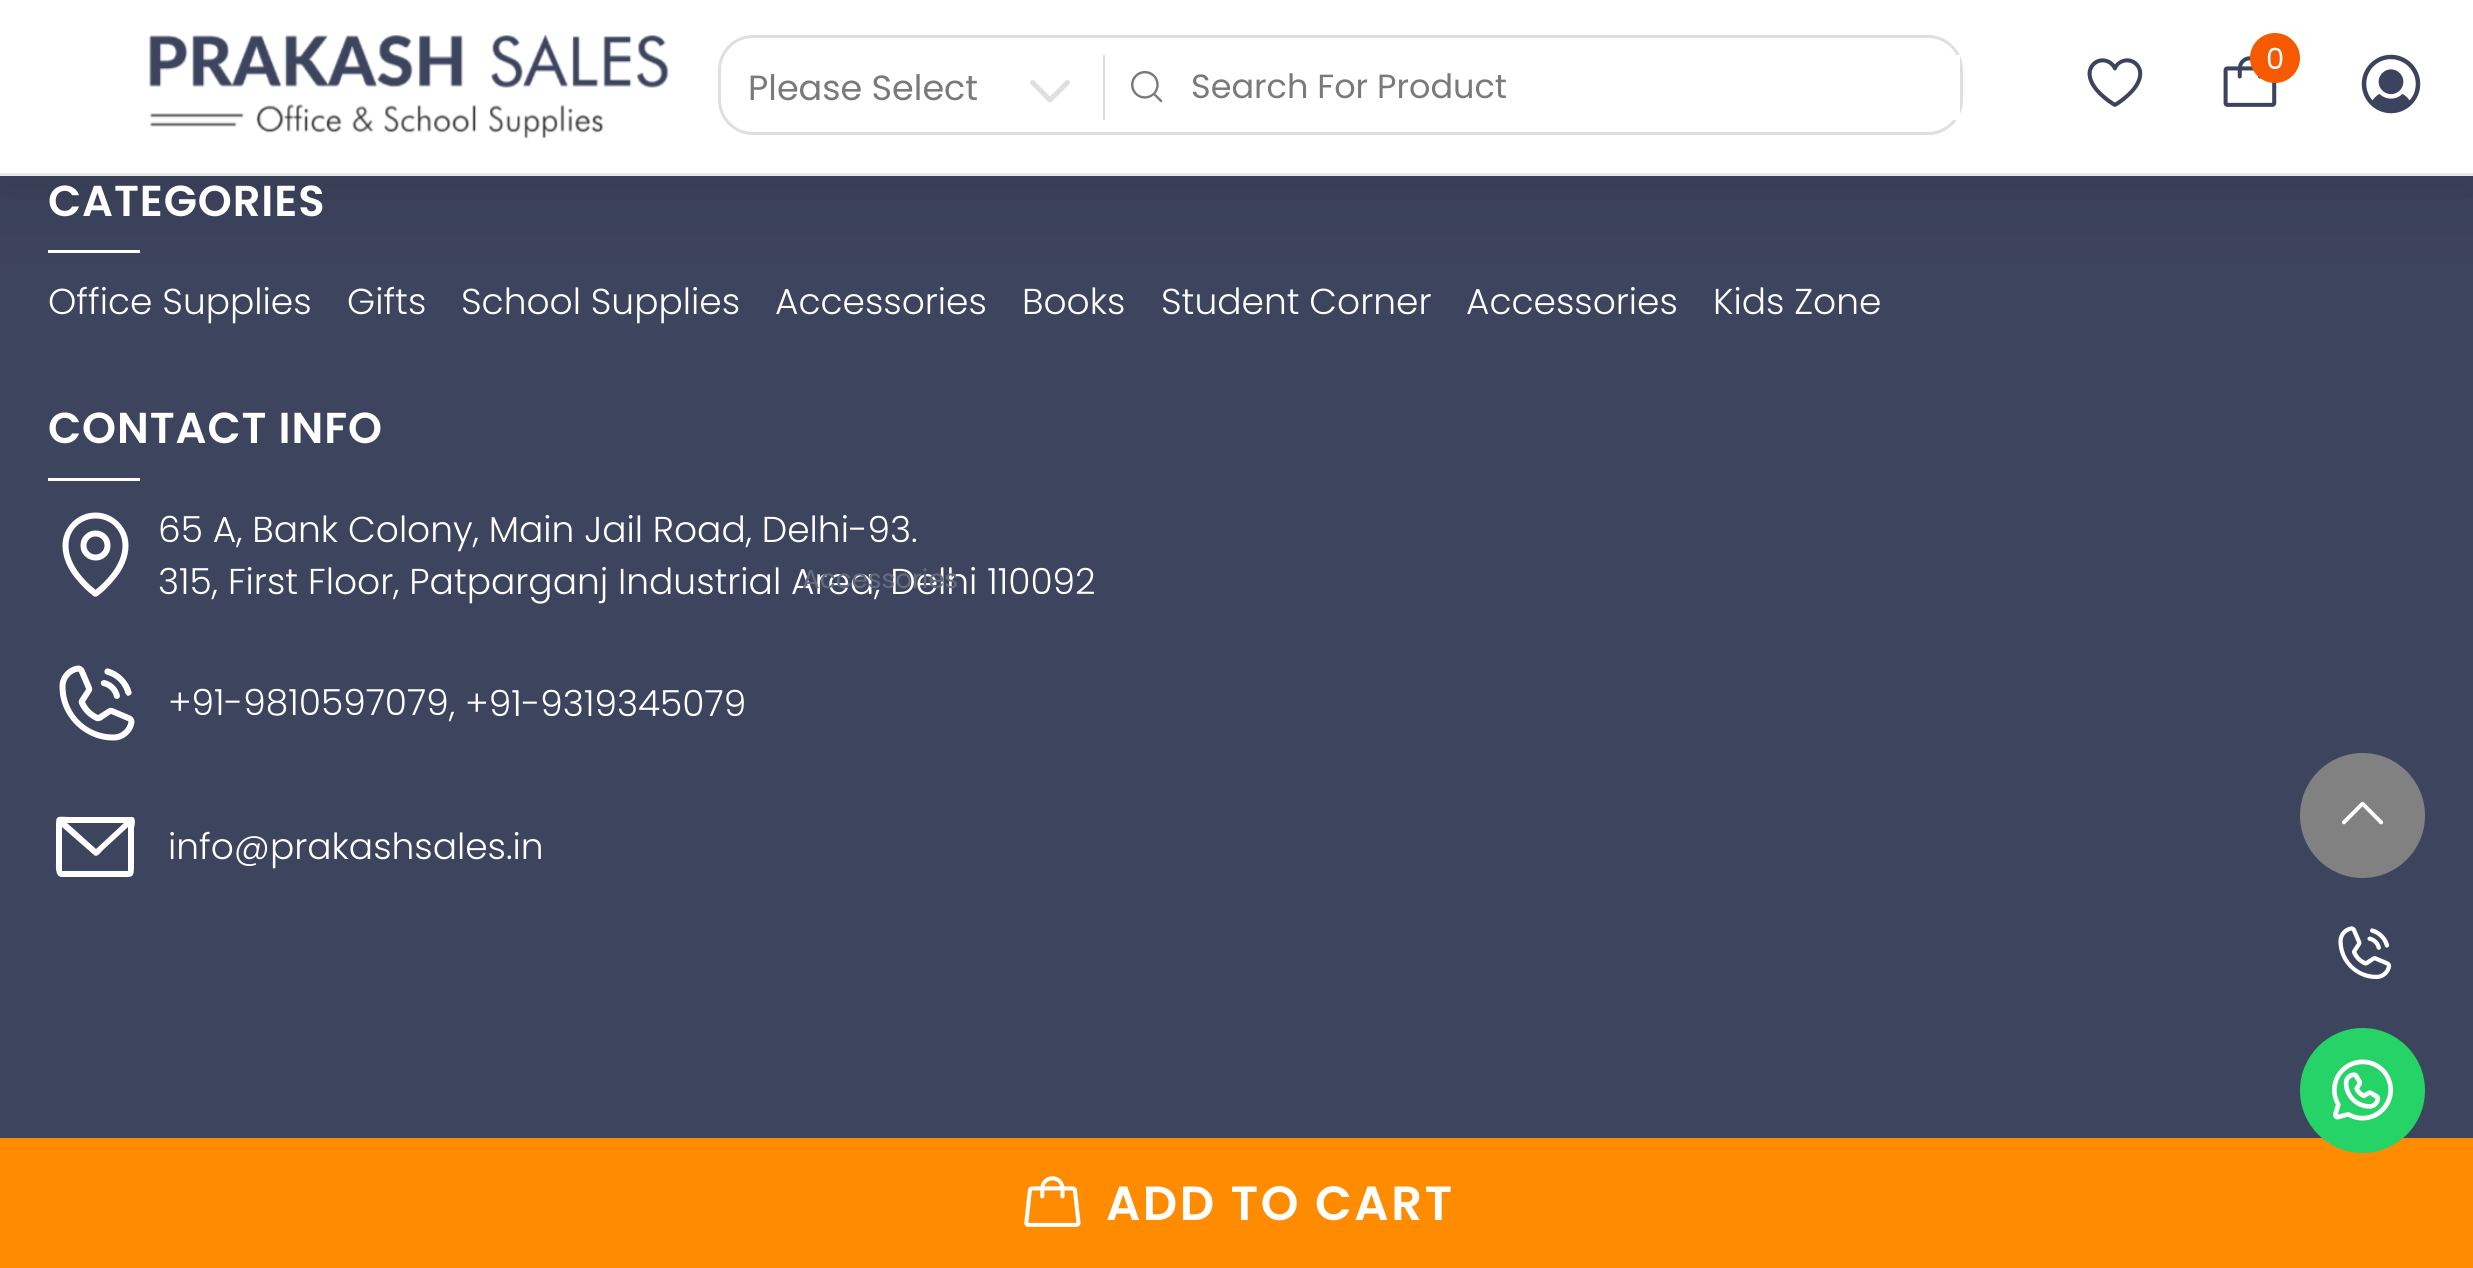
#include <cairo.h>
#include <math.h>
#include <stddef.h>

typedef struct { const char *family; double size; int italic, bold; unsigned color; } style_t;
static cairo_t *ctx;

static void ink(unsigned color) {
    cairo_set_source_rgb(ctx, (color >> 16) / 255.0, (color >> 8 & 255) / 255.0, (color & 255) / 255.0);
}

static void write(double x, double y, const char *s, const style_t *st) {
    cairo_select_font_face(ctx, st->family, st->italic ? CAIRO_FONT_SLANT_ITALIC : CAIRO_FONT_SLANT_NORMAL,
        st->bold ? CAIRO_FONT_WEIGHT_BOLD : CAIRO_FONT_WEIGHT_NORMAL);
    cairo_set_font_size(ctx, st->size);
    ink(st->color);
    cairo_move_to(ctx, x, y);
    cairo_show_text(ctx, s);
}

static void write_spaced(double x, double y, const char *s, double letter, double word) {
    cairo_move_to(ctx, x, y);
    while (*s) {
        char ch[5] = {0};
        int n = 0;
        do ch[n++] = *s++; while ((*s & 0xC0) == 0x80);
        cairo_show_text(ctx, ch);
        cairo_rel_move_to(ctx, letter + word * (*ch == ' '), 0);
    }
}

static void block(double x, double y, double w, double h, unsigned color) {
    ink(color);
    cairo_rectangle(ctx, x, y, w, h);
    cairo_fill(ctx);
}

static void round_path(double x, double y, double w, double h, double r) {
    cairo_new_sub_path(ctx);
    cairo_arc(ctx, x + w - r, y + h - r, r, 0, M_PI / 2);
    cairo_arc(ctx, x + r, y + h - r, r, M_PI / 2, M_PI);
    cairo_arc(ctx, x + r, y + r, r, M_PI, 1.5 * M_PI);
    cairo_arc(ctx, x + w - r, y + r, r, 1.5 * M_PI, 2 * M_PI);
    cairo_close_path(ctx);
}

static void blur_box(double x, double y, double w, double h, double r, double blur, double alpha) {
    cairo_push_group_with_content(ctx, CAIRO_CONTENT_ALPHA);
    cairo_set_operator(ctx, CAIRO_OPERATOR_SOURCE);
    for (int i = 15; i >= -15 && fmin(w, h) + blur * i / 3 > 0; i -= 2) {
        double e = blur * i / 6;
        cairo_set_source_rgba(ctx, 0, 0, 0, alpha * erfc((i - 1) / 8.5) / 2);
        round_path(x - e, y - e, w + 2 * e, h + 2 * e, fmax(0, fmin(r + e + blur * .6, fmin(w, h) / 2 + e)));
        cairo_fill(ctx);
    }
    cairo_pattern_t *soft = cairo_pop_group(ctx);
    cairo_mask(ctx, soft);
    cairo_pattern_destroy(soft);
}

static void paste(const char *path, double x, double y, double w, double h) {
    cairo_surface_t *image = cairo_image_surface_create_from_png(path);
    cairo_save(ctx);
    cairo_set_source_surface(ctx, image, x, y);
    cairo_rectangle(ctx, x, y, w, h);
    cairo_fill(ctx);
    cairo_restore(ctx);
    cairo_surface_destroy(image);
}

static const style_t s1 = {"Poppins", 29, 0, 0, 0xffffff};
static const style_t s2 = {"Poppins", 35, 0, 0, 0x7a7a7a};
static const style_t s3 = {"Poppins Light", 36, 0, 0, 0xffffff};
static const style_t s4 = {"Poppins", 26.25, 0, 0, 0x646a7e};
static const style_t s5 = {"Poppins", 33.5, 0, 0, 0x7a7a7a};

int main(void) {
    cairo_surface_t *surface = cairo_image_surface_create(CAIRO_FORMAT_RGB24, 2473, 1268);
    ctx = cairo_create(surface);
    cairo_font_options_t *options = cairo_font_options_create();
    cairo_font_options_set_hint_metrics(options, CAIRO_HINT_METRICS_OFF);
    cairo_font_options_set_hint_style(options, CAIRO_HINT_STYLE_NONE);
    cairo_set_font_options(ctx, options);
    cairo_set_miter_limit(ctx, 4);
    ink(0x3d445e);
    cairo_paint(ctx);
    block(48, 250, 92, 3, 0xffffff);
    ink(0x0b0b0b);
    blur_box(-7, 3, 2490, 190, 0, 37.5, 0.17);
    block(0, 0, 2473, 173, 0xffffff);
    block(0, 173, 2473, 3, 0xe8e8e8);
    paste("pic1.png", 149, 34, 520, 104);
    paste("pic2.png", 2087, 58, 56, 49);
    paste("pic3.png", 2223, 56, 54, 51);
    ink(0xf55a00);
    cairo_arc(ctx, 2275, 58, 25, 0, 2 * M_PI);
    cairo_fill(ctx);
    write(2266, 69, "0", &s1);
    paste("pic4.png", 2361, 54, 60, 60);
    round_path(719.5, 36.5, 1242, 97, 33.5);
    ink(0xdfdfdf);
    cairo_set_line_width(ctx, 3);
    cairo_stroke(ctx);
    block(1103, 55, 2, 65, 0xdcdcdc);
    write(748, 100, "Please Select", &s2);
    write(158, 594, "315, First Floor, Patparganj Industrial Area, Delhi 110092", &s3);
    write(802, 588, "Accessories", &s4);
    paste("pic5.png", 1030, 80, 40, 23);
    paste("pic6.png", 1131, 71, 32, 32);
    block(1953, 55, 7, 65, 0xffffff);
    write(1191, 98, "Search For Product", &s5);
    cairo_select_font_face(ctx, "Poppins SemiBold", CAIRO_FONT_SLANT_NORMAL, CAIRO_FONT_WEIGHT_NORMAL);
    cairo_set_font_size(ctx, 43.25);
    ink(0xffffff);
    write_spaced(48, 216, "CATEGORIES", 0.9, 0);
    write(48, 314, "Office Supplies", &s3);
    write(347, 314, "Gifts", &s3);
    write(461, 314, "School Supplies", &s3);
    write(775, 314, "Accessories", &s3);
    write(1022, 314, "Books", &s3);
    write(1161, 314, "Student Corner", &s3);
    write(1466, 314, "Accessories", &s3);
    write(1713, 314, "Kids Zone", &s3);
    cairo_select_font_face(ctx, "Poppins SemiBold", CAIRO_FONT_SLANT_NORMAL, CAIRO_FONT_WEIGHT_NORMAL);
    cairo_set_font_size(ctx, 43.25);
    write_spaced(48, 443, "CONTACT INFO", 0.9, 0);
    block(48, 478, 92, 3, 0xffffff);
    paste("pic7.png", 62, 512, 67, 85);
    write(158, 542, "65 A, Bank Colony, Main Jail Road, Delhi-93.", &s3);
    paste("pic8.png", 59, 665, 76, 76);
    write(168, 715, "+91-9810597079", &s3);
    write(449, 716, ", +91-9319345079", &s3);
    cairo_new_path(ctx);
    cairo_move_to(ctx, 132, 817);
    cairo_line_to(ctx, 72, 817);
    cairo_curve_to(ctx, 56, 817, 56, 814, 56, 828);
    cairo_line_to(ctx, 56, 862);
    cairo_curve_to(ctx, 56, 867, 55, 877, 62, 877);
    cairo_line_to(ctx, 118, 877);
    cairo_curve_to(ctx, 134, 877, 134, 879, 134, 862);
    cairo_line_to(ctx, 134, 828);
    cairo_curve_to(ctx, 134, 828, 137, 817, 132, 817);
    cairo_close_path(ctx);
    cairo_move_to(ctx, 124, 823);
    cairo_line_to(ctx, 96, 849);
    cairo_line_to(ctx, 67, 823);
    cairo_close_path(ctx);
    cairo_move_to(ctx, 128, 871);
    cairo_line_to(ctx, 62, 871);
    cairo_line_to(ctx, 62, 827);
    cairo_line_to(ctx, 94, 855);
    cairo_curve_to(ctx, 97, 858, 101, 852, 103, 850);
    cairo_line_to(ctx, 128, 827);
    cairo_close_path(ctx);
    cairo_fill(ctx);
    write(168, 859, "info@prakashsales.in", &s3);
    ink(0x818181);
    cairo_new_path(ctx);
    cairo_arc(ctx, 2362.5, 815.5, 62.5, 0, 2 * M_PI);
    cairo_fill(ctx);
    paste("pic9.png", 2342, 801, 42, 24);
    paste("pic10.png", 2338, 926, 54, 54);
    block(0, 1138, 2473, 130, 0xff8c00);
    ink(0x25d366);
    cairo_arc(ctx, 2362.5, 1090.5, 62.5, 0, 2 * M_PI);
    cairo_fill(ctx);
    paste("pic11.png", 2332, 1059, 62, 62);
    paste("pic12.png", 1024, 1176, 57, 51);
    cairo_select_font_face(ctx, "Poppins SemiBold", CAIRO_FONT_SLANT_NORMAL, CAIRO_FONT_WEIGHT_NORMAL);
    cairo_set_font_size(ctx, 48);
    ink(0xffffff);
    write_spaced(1106, 1220, "ADD TO CART", 2.5, 0);
    cairo_surface_write_to_png(surface, "screenshot.png");
    cairo_font_options_destroy(options);
    cairo_destroy(ctx);
    cairo_surface_destroy(surface);
    return 0;
}
